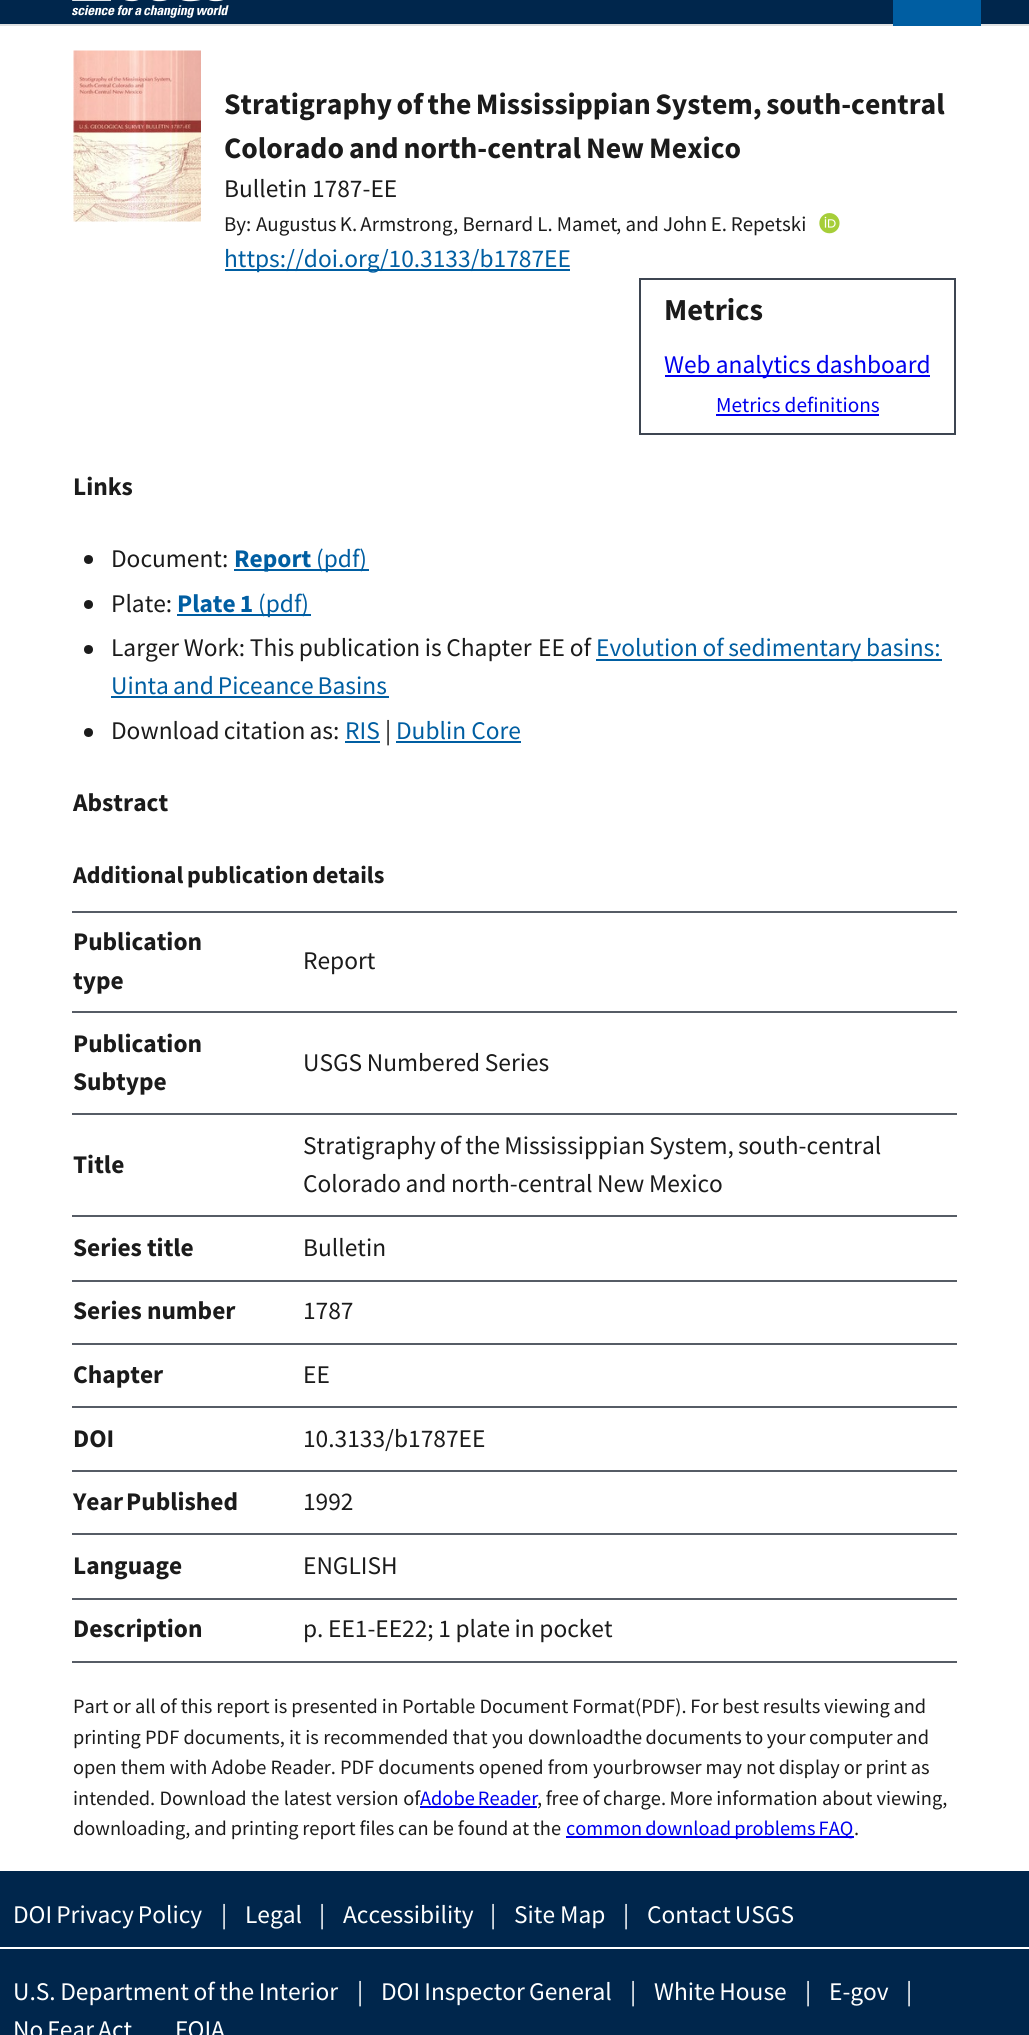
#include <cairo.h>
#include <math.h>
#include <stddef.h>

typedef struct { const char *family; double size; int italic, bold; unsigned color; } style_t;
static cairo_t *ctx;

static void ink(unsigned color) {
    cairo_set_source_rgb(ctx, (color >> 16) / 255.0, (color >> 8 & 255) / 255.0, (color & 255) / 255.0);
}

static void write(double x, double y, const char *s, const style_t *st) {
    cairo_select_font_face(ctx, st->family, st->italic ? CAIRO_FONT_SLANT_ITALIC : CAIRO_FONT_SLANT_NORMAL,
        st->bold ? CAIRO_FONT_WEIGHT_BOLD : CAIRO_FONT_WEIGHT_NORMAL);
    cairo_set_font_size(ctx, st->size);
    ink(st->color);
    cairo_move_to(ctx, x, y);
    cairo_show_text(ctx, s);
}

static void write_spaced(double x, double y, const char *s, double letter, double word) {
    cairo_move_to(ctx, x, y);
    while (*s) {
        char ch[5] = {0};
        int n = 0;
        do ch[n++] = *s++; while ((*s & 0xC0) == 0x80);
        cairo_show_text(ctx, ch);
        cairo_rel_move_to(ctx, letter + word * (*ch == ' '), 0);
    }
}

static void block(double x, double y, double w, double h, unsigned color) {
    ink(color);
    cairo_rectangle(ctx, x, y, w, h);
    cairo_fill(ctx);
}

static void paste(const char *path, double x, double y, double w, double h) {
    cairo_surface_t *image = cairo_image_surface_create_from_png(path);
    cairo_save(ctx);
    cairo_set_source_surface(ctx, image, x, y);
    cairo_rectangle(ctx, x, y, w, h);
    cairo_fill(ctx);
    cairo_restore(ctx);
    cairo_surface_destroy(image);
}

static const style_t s1 = {"Source Sans Pro", 25.4, 0, 0, 0x1b1b1b};
static const style_t s2 = {"Source Sans Pro", 20.9, 0, 0, 0x1b1b1b};
static const style_t s3 = {"Source Sans Pro", 25.4, 0, 0, 0x005ea2};
static const style_t s4 = {"Source Sans Pro", 30.5, 0, 1, 0x1b1b1b};
static const style_t s5 = {"Source Sans Pro", 25.4, 0, 0, 0x0000ee};
static const style_t s6 = {"Source Sans Pro", 21.25, 0, 0, 0x0000ee};
static const style_t s7 = {"Source Sans Pro", 25.4, 0, 1, 0x1b1b1b};
static const style_t s8 = {"Source Sans Pro", 25.4, 0, 1, 0x005ea2};
static const style_t s9 = {"Source Sans Pro", 20.35, 0, 0, 0x1b1b1b};
static const style_t s10 = {"Source Sans Pro", 25.4, 0, 0, 0xffffff};

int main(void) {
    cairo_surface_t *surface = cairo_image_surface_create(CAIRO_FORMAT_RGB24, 1029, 2035);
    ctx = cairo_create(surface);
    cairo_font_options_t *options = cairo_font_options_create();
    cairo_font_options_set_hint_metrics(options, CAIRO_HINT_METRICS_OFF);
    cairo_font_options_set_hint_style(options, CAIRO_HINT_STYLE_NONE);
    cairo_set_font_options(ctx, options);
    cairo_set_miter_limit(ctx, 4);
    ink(0xffffff);
    cairo_paint(ctx);
    block(0, 0, 1029, 24, 0x00264c);
    block(0, 24, 1029, 2, 0xdfe1e2);
    paste("pic1.png", 72, 0, 157, 18);
    block(893, 0, 88, 26, 0x005ea2);
    paste("pic2.png", 73, 50, 128, 172);
    cairo_select_font_face(ctx, "Source Sans Pro", CAIRO_FONT_SLANT_NORMAL, CAIRO_FONT_WEIGHT_BOLD);
    cairo_set_font_size(ctx, 29.75);
    ink(0x1b1b1b);
    write_spaced(224, 114, "Stratigraphy of the Mississippian System, south-central", 0, -1.5);
    write_spaced(224, 158, "Colorado and north-central New Mexico", 0, -1);
    write(224, 197, "Bulletin", &s1);
    write(312, 197, "1787-EE", &s1);
    write(224, 231, "By:", &s2);
    write_spaced(256, 231, "Augustus K. Armstrong", 0, -1);
    write(453, 231, ", Bernard L. Mamet", &s2);
    write(616, 231, ", and", &s2);
    write_spaced(663, 231, "John E. Repetski", 0, -0.5);
    paste("pic3.png", 819, 213, 21, 21);
    block(225, 269, 345, 2, 0x005ea2);
    write(224, 267, "https://doi.org/10.3133/b1787EE", &s3);
    cairo_rectangle(ctx, 640, 279, 315, 155);
    ink(0x3d4551);
    cairo_stroke(ctx);
    write(664, 320, "Metrics", &s4);
    block(665, 375, 265, 2, 0x0000ee);
    write(664, 373, "Web analytics dashboard", &s5);
    write(716, 412, "Metrics definitions", &s6);
    block(716, 414, 163, 2, 0x0000ee);
    write(73, 495, "Links", &s7);
    cairo_new_path(ctx);
    cairo_arc(ctx, 88.5, 559.5, 4.5, 0, 2 * M_PI);
    cairo_fill(ctx);
    write(111, 567, "Document:", &s1);
    block(234, 569, 135, 2, 0x005ea2);
    write(234, 567, "Report", &s8);
    write(316, 567, "(pdf)", &s3);
    ink(0x1b1b1b);
    cairo_new_path(ctx);
    cairo_arc(ctx, 88.5, 604.5, 4.5, 0, 2 * M_PI);
    cairo_fill(ctx);
    write(111, 612, "Plate:", &s1);
    cairo_select_font_face(ctx, "Source Sans Pro", CAIRO_FONT_SLANT_NORMAL, CAIRO_FONT_WEIGHT_BOLD);
    ink(0x005ea2);
    write_spaced(177, 612, "Plate 1", 0, -1);
    block(177, 614, 134, 2, 0x005ea2);
    write(258, 612, "(pdf)", &s3);
    ink(0x1b1b1b);
    cairo_new_path(ctx);
    cairo_arc(ctx, 88.5, 649.5, 4.5, 0, 2 * M_PI);
    cairo_fill(ctx);
    write_spaced(111, 656, "Larger Work: This publication is Chapter", 0, -0.5);
    write(538, 656, "EE of", &s1);
    block(596, 659, 346, 2, 0x005ea2);
    write_spaced(596, 656, "Evolution of sedimentary basins:", 0, -0.5);
    write_spaced(111, 694, "Uinta and Piceance Basins", 0, -1);
    block(111, 696, 278, 2, 0x005ea2);
    ink(0x1b1b1b);
    cairo_new_path(ctx);
    cairo_arc(ctx, 88.5, 732.5, 4.5, 0, 2 * M_PI);
    cairo_fill(ctx);
    write_spaced(111, 739, "Download citation as:", 0, -1);
    write(345, 739, "RIS", &s3);
    block(345, 741, 35, 2, 0x005ea2);
    write(385, 739, "|", &s1);
    write(396, 739, "Dublin Core", &s3);
    block(396, 741, 125, 2, 0x005ea2);
    write(73, 811, "Abstract", &s7);
    cairo_set_font_size(ctx, 24);
    write_spaced(73, 883, "Additional publication details", 0, -1);
    write(73, 950, "Publication", &s7);
    write(73, 989, "type", &s7);
    block(72, 911, 885, 2, 0x565c65);
    write(303, 969, "Report", &s1);
    write(73, 1052, "Publication", &s7);
    write(73, 1090, "Subtype", &s7);
    block(72, 1011, 885, 2, 0x565c65);
    cairo_select_font_face(ctx, "Source Sans Pro", CAIRO_FONT_SLANT_NORMAL, CAIRO_FONT_WEIGHT_NORMAL);
    ink(0x1b1b1b);
    write_spaced(303, 1071, "USGS Numbered Series", 0, -0.5);
    write(73, 1173, "Title", &s7);
    block(72, 1113, 885, 2, 0x565c65);
    cairo_select_font_face(ctx, "Source Sans Pro", CAIRO_FONT_SLANT_NORMAL, CAIRO_FONT_WEIGHT_NORMAL);
    ink(0x1b1b1b);
    write_spaced(303, 1154, "Stratigraphy of the Mississippian System, south-central", 0, -1);
    write_spaced(303, 1192, "Colorado and north-central New Mexico", 0, -0.5);
    write(73, 1256, "Series title", &s7);
    block(72, 1215, 885, 2, 0x565c65);
    write(303, 1256, "Bulletin", &s1);
    write(73, 1319, "Series number", &s7);
    block(72, 1280, 885, 2, 0x565c65);
    write(303, 1319, "1787", &s1);
    write(73, 1383, "Chapter", &s7);
    block(72, 1343, 885, 2, 0x565c65);
    write(303, 1383, "EE", &s1);
    write(73, 1447, "DOI", &s7);
    block(72, 1406, 885, 2, 0x565c65);
    write(303, 1447, "10.3133/b1787EE", &s1);
    cairo_select_font_face(ctx, "Source Sans Pro", CAIRO_FONT_SLANT_NORMAL, CAIRO_FONT_WEIGHT_BOLD);
    write_spaced(73, 1510, "Year Published", 0, -2);
    block(72, 1470, 885, 2, 0x565c65);
    write(303, 1510, "1992", &s1);
    write(73, 1574, "Language", &s7);
    block(72, 1533, 885, 2, 0x565c65);
    write(303, 1574, "ENGLISH", &s1);
    write(73, 1637, "Description", &s7);
    block(72, 1598, 885, 2, 0x565c65);
    block(72, 1661, 885, 2, 0x565c65);
    cairo_select_font_face(ctx, "Source Sans Pro", CAIRO_FONT_SLANT_NORMAL, CAIRO_FONT_WEIGHT_NORMAL);
    ink(0x1b1b1b);
    write_spaced(303, 1637, "p. EE1-EE22; 1 plate in pocket", 0, -0.5);
    write(73, 1713, "Part or all of this report is presented in Portable Document Format", &s9);
    write_spaced(635, 1713, "(PDF). For best results viewing and", 0, -0.25);
    write_spaced(73, 1744, "printing PDF documents, it is recommended that you download", 0, 0.25);
    write_spaced(614, 1744, "the documents to your computer and", 0, -0.5);
    write_spaced(73, 1774, "open them with Adobe Reader. PDF documents opened from your", 0, 0.1);
    write_spaced(632, 1774, "browser may not display or print as", 0, -0.25);
    write_spaced(73, 1805, "intended. Download the latest version of", 0, 0.5);
    ink(0x0000ee);
    write_spaced(420, 1805, "Adobe Reader", 0, -1);
    block(420, 1806, 117, 2, 0x0000ee);
    ink(0x1b1b1b);
    write_spaced(537, 1805, ", free of charge. More information", 0, -0.5);
    write(822, 1805, "about viewing,", &s9);
    write_spaced(73, 1835, "downloading, and printing report files can be found at the", 0, -0.25);
    block(566, 1836, 288, 2, 0x0000ee);
    write_spaced(566, 1835, "common download problems FAQ", 0, -1);
    write(854, 1835, ".", &s9);
    block(0, 1871, 1029, 164, 0x00264c);
    block(0, 1947, 1029, 2, 0xffffff);
    cairo_set_font_size(ctx, 25.4);
    write_spaced(13, 1923, "DOI Privacy Policy", 0, -1);
    write(221, 1923, "|", &s10);
    write(245, 1923, "Legal", &s10);
    write(319, 1923, "|", &s10);
    write(343, 1923, "Accessibility", &s10);
    write(490, 1923, "|", &s10);
    write(514, 1923, "Site Map", &s10);
    write(623, 1923, "|", &s10);
    write_spaced(647, 1923, "Contact USGS", 0, -1);
    write_spaced(13, 2000, "U.S. Department of the Interior", 0, -0.5);
    write(357, 2000, "|", &s10);
    write_spaced(381, 2000, "DOI Inspector General", 0, -1);
    write(630, 2000, "|", &s10);
    write_spaced(654, 2000, "White House", 0, -1);
    write(805, 2000, "|", &s10);
    write(829, 2000, "E-gov", &s10);
    write(906, 2000, "|", &s10);
    write_spaced(13, 2038, "No Fear Act", 0, -1);
    write(175, 2038, "FOIA", &s10);
    cairo_surface_write_to_png(surface, "screenshot.png");
    cairo_font_options_destroy(options);
    cairo_destroy(ctx);
    cairo_surface_destroy(surface);
    return 0;
}
